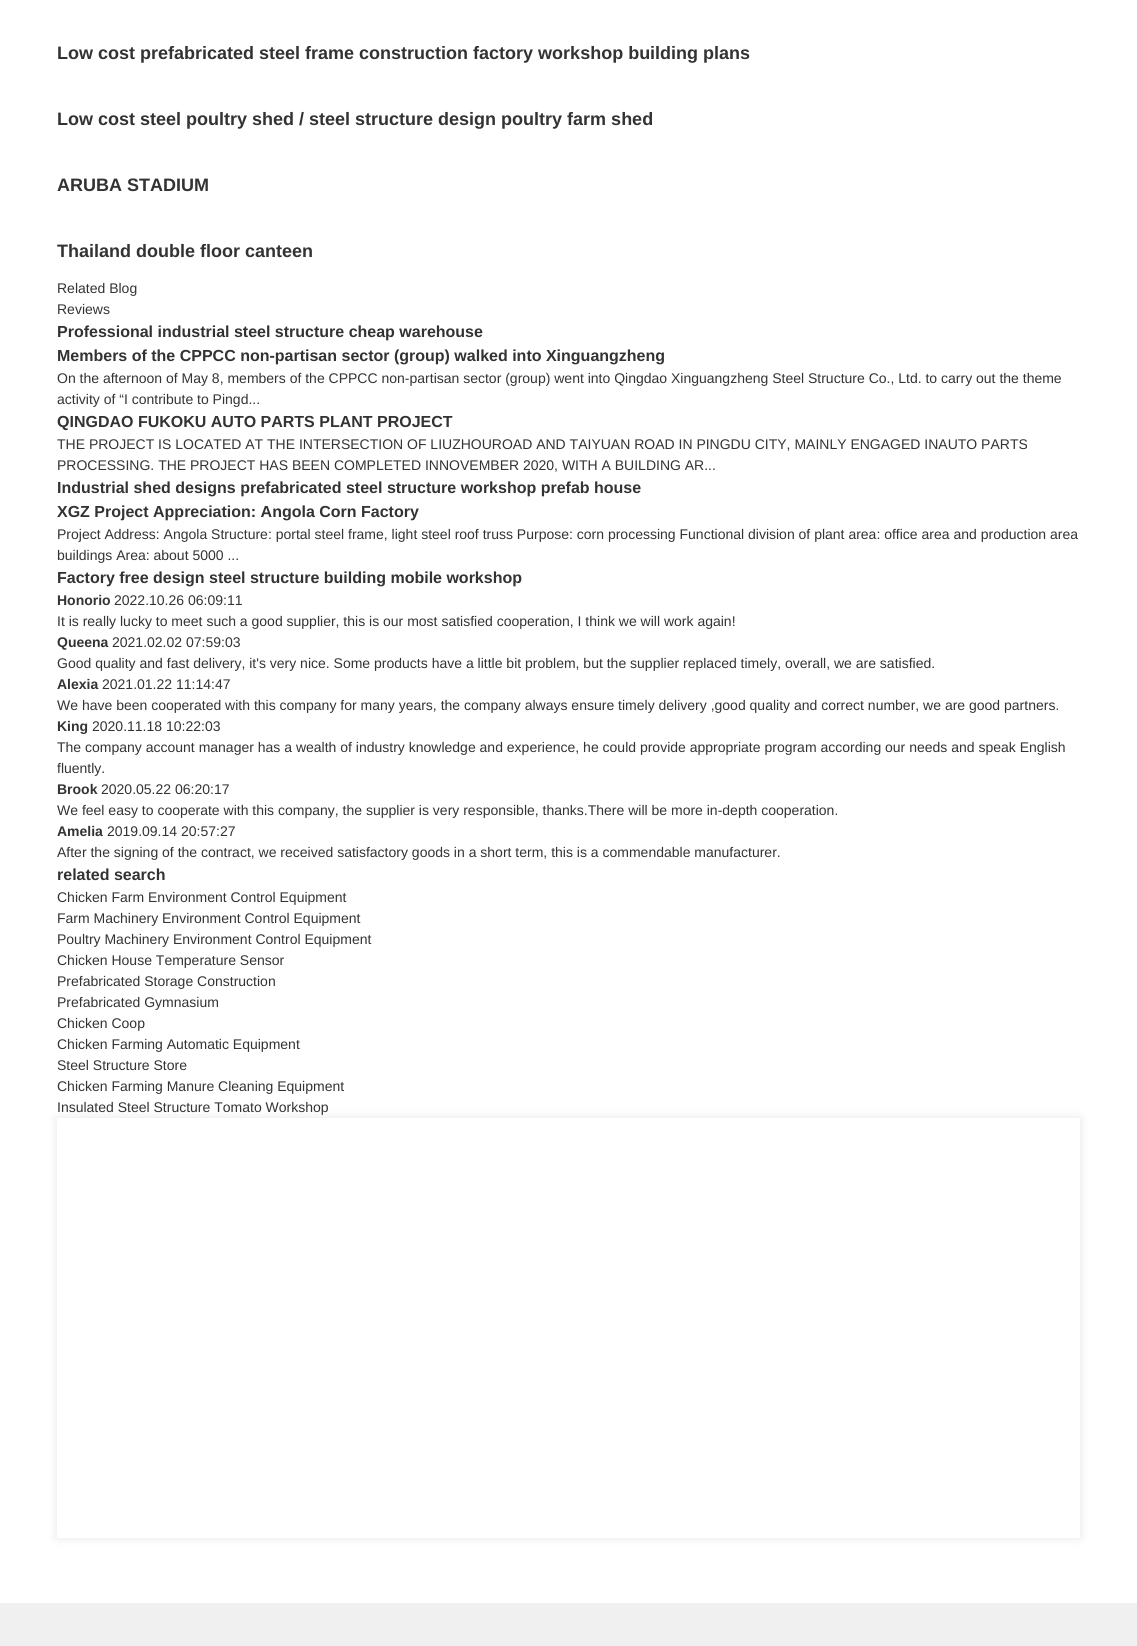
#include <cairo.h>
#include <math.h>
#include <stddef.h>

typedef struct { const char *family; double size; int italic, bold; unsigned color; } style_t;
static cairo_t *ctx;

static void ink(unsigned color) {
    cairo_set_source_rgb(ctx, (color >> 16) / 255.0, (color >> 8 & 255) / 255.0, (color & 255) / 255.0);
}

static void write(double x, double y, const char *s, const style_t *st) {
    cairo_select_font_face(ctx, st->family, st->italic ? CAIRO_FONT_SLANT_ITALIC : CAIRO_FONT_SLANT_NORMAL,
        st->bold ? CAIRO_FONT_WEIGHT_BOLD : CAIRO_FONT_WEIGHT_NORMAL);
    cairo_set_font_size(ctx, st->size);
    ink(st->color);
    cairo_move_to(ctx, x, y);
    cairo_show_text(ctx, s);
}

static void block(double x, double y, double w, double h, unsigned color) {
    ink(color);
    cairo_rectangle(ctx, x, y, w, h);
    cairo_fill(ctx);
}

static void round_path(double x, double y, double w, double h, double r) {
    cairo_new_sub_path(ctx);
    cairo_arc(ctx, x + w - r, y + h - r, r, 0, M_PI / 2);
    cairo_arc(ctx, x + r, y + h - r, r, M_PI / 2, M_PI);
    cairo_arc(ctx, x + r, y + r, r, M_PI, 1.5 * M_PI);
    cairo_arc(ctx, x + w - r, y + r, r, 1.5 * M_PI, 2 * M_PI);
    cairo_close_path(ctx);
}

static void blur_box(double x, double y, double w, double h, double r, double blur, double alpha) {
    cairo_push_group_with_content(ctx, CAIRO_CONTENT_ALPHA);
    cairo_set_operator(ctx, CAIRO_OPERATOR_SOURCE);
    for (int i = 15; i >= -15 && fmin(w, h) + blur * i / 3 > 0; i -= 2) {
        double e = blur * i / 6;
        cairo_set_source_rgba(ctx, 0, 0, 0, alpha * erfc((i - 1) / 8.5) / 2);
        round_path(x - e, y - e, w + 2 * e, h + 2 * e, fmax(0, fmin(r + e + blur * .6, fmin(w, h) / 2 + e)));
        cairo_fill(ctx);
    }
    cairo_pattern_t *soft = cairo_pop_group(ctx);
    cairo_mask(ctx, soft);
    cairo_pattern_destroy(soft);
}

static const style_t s1 = {"Liberation Sans", 18, 0, 1, 0x333333};
static const style_t s2 = {"Liberation Sans", 14, 0, 0, 0x333333};
static const style_t s3 = {"Liberation Sans", 16, 0, 1, 0x333333};
static const style_t s4 = {"Liberation Sans", 14, 0, 1, 0x333333};

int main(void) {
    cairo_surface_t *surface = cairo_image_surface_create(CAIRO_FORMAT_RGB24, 1137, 1646);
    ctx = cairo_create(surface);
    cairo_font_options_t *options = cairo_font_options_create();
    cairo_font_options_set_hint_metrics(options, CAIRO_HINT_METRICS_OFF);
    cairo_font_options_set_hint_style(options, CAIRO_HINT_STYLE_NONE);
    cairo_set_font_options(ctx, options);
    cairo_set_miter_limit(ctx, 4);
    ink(0xffffff);
    cairo_paint(ctx);
    write(57, 59, "Low cost prefabricated steel frame construction factory workshop building plans", &s1);
    write(57, 125, "Low cost steel poultry shed / steel structure design poultry farm shed", &s1);
    write(57, 191, "ARUBA STADIUM", &s1);
    write(57, 257, "Thailand double floor canteen", &s1);
    write(57, 293, "Related Blog", &s2);
    write(57, 314, "Reviews", &s2);
    write(57, 337, "Professional industrial steel structure cheap warehouse", &s3);
    write(57, 361, "Members of the CPPCC non-partisan sector (group) walked into Xinguangzheng", &s3);
    write(57, 383, "On the afternoon of May 8, members of the CPPCC non-partisan sector (group) went into Qingdao Xinguangzheng Steel Structure Co., Ltd. to carry out the theme", &s2);
    write(57, 404, "activity of “I contribute to Pingd...", &s2);
    write(57, 427, "QINGDAO FUKOKU AUTO PARTS PLANT PROJECT", &s3);
    write(57, 449, "THE PROJECT IS LOCATED AT THE INTERSECTION OF LIUZHOUROAD AND TAIYUAN ROAD IN PINGDU CITY, MAINLY ENGAGED INAUTO PARTS", &s2);
    write(57, 470, "PROCESSING. THE PROJECT HAS BEEN COMPLETED INNOVEMBER 2020, WITH A BUILDING AR...", &s2);
    write(57, 493, "Industrial shed designs prefabricated steel structure workshop prefab house", &s3);
    write(57, 517, "XGZ Project Appreciation: Angola Corn Factory", &s3);
    write(57, 539, "Project Address: Angola Structure: portal steel frame, light steel roof truss Purpose: corn processing Functional division of plant area: office area and production area", &s2);
    write(57, 560, "buildings Area: about 5000 ...", &s2);
    write(57, 583, "Factory free design steel structure building mobile workshop", &s3);
    write(57, 605, "Honorio", &s4);
    write(114, 605, "2022.10.26 06:09:11", &s2);
    write(57, 626, "It is really lucky to meet such a good supplier, this is our most satisfied cooperation, I think we will work again!", &s2);
    write(57, 647, "Queena", &s4);
    write(112, 647, "2021.02.02 07:59:03", &s2);
    write(57, 668, "Good quality and fast delivery, it's very nice. Some products have a little bit problem, but the supplier replaced timely, overall, we are satisfied.", &s2);
    write(57, 689, "Alexia", &s4);
    write(102, 689, "2021.01.22 11:14:47", &s2);
    write(57, 710, "We have been cooperated with this company for many years, the company always ensure timely delivery ,good quality and correct number, we are good partners.", &s2);
    write(57, 731, "King", &s4);
    write(92, 731, "2020.11.18 10:22:03", &s2);
    write(57, 752, "The company account manager has a wealth of industry knowledge and experience, he could provide appropriate program according our needs and speak English", &s2);
    write(57, 773, "fluently.", &s2);
    write(57, 794, "Brook", &s4);
    write(101, 794, "2020.05.22 06:20:17", &s2);
    write(57, 815, "We feel easy to cooperate with this company, the supplier is very responsible, thanks.There will be more in-depth cooperation.", &s2);
    write(57, 836, "Amelia", &s4);
    write(107, 836, "2019.09.14 20:57:27", &s2);
    write(57, 857, "After the signing of the contract, we received satisfactory goods in a short term, this is a commendable manufacturer.", &s2);
    write(57, 880, "related search", &s3);
    write(57, 902, "Chicken Farm Environment Control Equipment", &s2);
    write(57, 923, "Farm Machinery Environment Control Equipment", &s2);
    write(57, 944, "Poultry Machinery Environment Control Equipment", &s2);
    write(57, 965, "Chicken House Temperature Sensor", &s2);
    write(57, 986, "Prefabricated Storage Construction", &s2);
    write(57, 1007, "Prefabricated Gymnasium", &s2);
    write(57, 1028, "Chicken Coop", &s2);
    write(57, 1049, "Chicken Farming Automatic Equipment", &s2);
    write(57, 1070, "Steel Structure Store", &s2);
    write(57, 1091, "Chicken Farming Manure Cleaning Equipment", &s2);
    write(57, 1112, "Insulated Steel Structure Tomato Workshop", &s2);
    cairo_save(ctx);
    cairo_set_fill_rule(ctx, CAIRO_FILL_RULE_EVEN_ODD);
    cairo_new_path(ctx);
    cairo_move_to(ctx, 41, 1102);
    cairo_line_to(ctx, 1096, 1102);
    cairo_line_to(ctx, 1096, 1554);
    cairo_line_to(ctx, 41, 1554);
    cairo_close_path(ctx);
    cairo_move_to(ctx, 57, 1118);
    cairo_line_to(ctx, 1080, 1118);
    cairo_line_to(ctx, 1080, 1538);
    cairo_line_to(ctx, 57, 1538);
    cairo_close_path(ctx);
    cairo_clip(ctx);
    ink(0x000000);
    blur_box(57, 1118, 1023, 420, 0, 5, 0.1);
    cairo_restore(ctx);
    block(0, 1603, 1137, 43, 0xf0f0f0);
    cairo_surface_write_to_png(surface, "screenshot.png");
    cairo_font_options_destroy(options);
    cairo_destroy(ctx);
    cairo_surface_destroy(surface);
    return 0;
}
